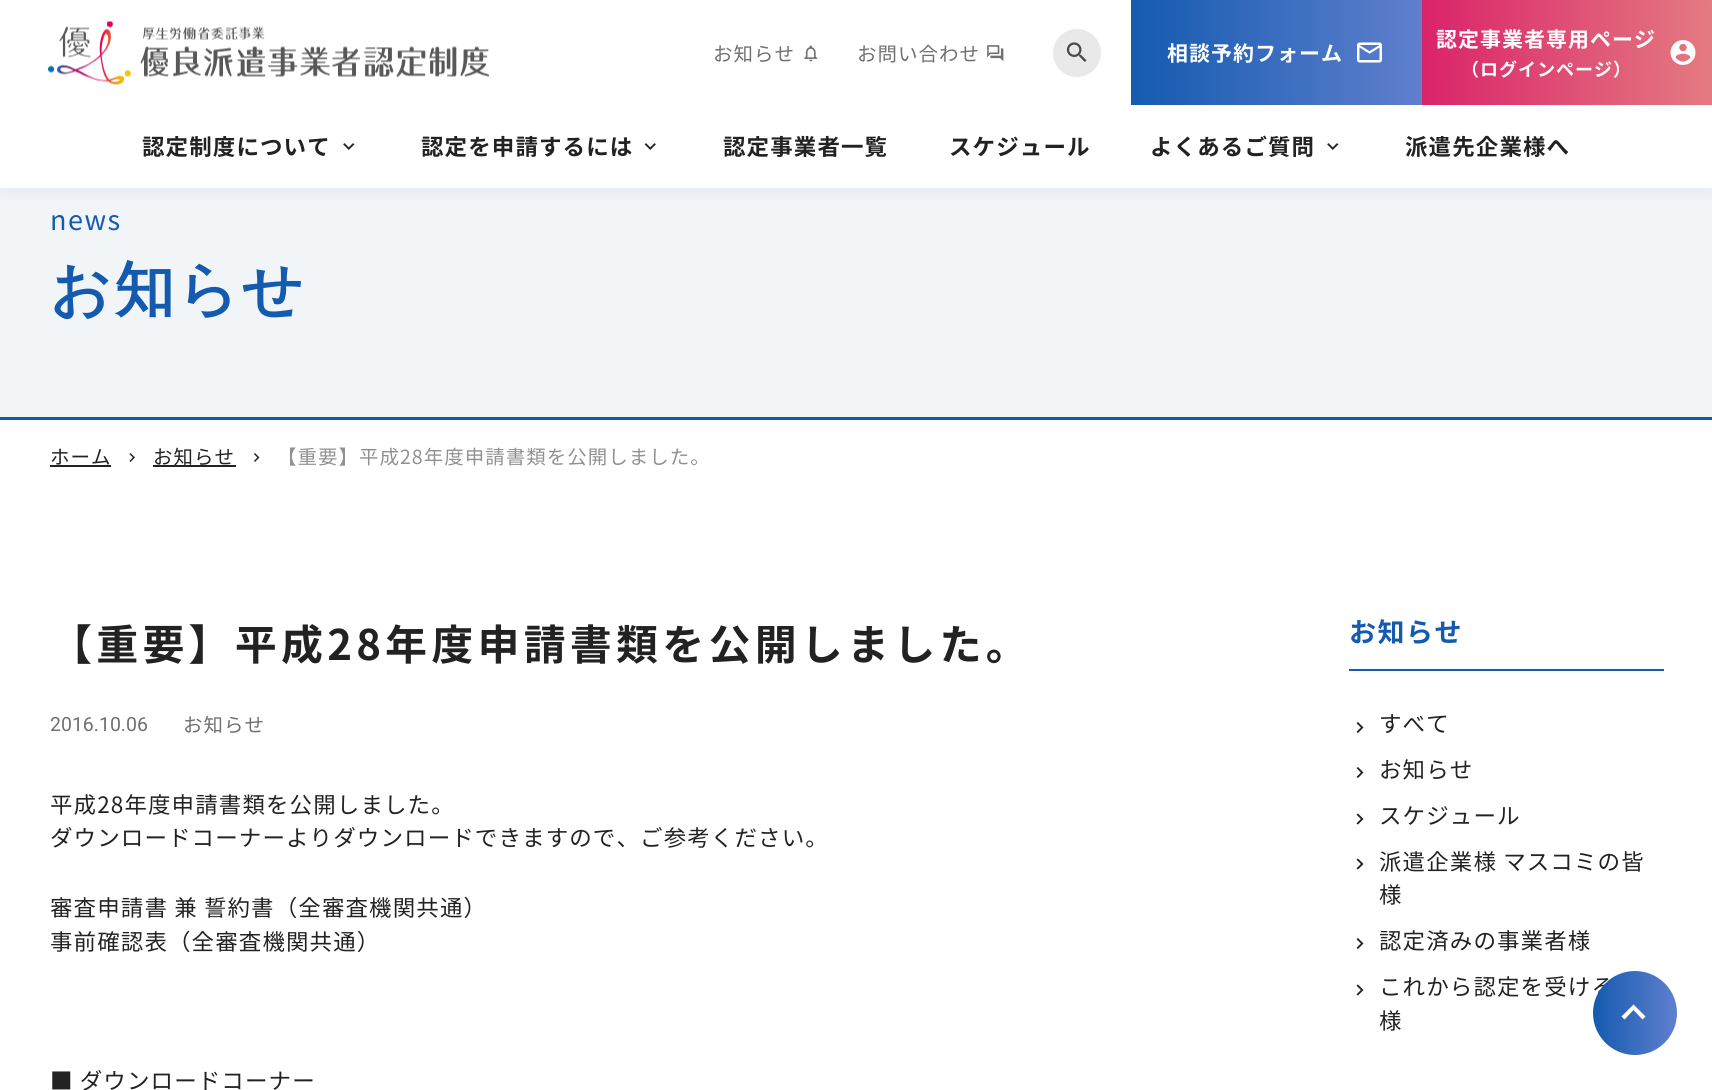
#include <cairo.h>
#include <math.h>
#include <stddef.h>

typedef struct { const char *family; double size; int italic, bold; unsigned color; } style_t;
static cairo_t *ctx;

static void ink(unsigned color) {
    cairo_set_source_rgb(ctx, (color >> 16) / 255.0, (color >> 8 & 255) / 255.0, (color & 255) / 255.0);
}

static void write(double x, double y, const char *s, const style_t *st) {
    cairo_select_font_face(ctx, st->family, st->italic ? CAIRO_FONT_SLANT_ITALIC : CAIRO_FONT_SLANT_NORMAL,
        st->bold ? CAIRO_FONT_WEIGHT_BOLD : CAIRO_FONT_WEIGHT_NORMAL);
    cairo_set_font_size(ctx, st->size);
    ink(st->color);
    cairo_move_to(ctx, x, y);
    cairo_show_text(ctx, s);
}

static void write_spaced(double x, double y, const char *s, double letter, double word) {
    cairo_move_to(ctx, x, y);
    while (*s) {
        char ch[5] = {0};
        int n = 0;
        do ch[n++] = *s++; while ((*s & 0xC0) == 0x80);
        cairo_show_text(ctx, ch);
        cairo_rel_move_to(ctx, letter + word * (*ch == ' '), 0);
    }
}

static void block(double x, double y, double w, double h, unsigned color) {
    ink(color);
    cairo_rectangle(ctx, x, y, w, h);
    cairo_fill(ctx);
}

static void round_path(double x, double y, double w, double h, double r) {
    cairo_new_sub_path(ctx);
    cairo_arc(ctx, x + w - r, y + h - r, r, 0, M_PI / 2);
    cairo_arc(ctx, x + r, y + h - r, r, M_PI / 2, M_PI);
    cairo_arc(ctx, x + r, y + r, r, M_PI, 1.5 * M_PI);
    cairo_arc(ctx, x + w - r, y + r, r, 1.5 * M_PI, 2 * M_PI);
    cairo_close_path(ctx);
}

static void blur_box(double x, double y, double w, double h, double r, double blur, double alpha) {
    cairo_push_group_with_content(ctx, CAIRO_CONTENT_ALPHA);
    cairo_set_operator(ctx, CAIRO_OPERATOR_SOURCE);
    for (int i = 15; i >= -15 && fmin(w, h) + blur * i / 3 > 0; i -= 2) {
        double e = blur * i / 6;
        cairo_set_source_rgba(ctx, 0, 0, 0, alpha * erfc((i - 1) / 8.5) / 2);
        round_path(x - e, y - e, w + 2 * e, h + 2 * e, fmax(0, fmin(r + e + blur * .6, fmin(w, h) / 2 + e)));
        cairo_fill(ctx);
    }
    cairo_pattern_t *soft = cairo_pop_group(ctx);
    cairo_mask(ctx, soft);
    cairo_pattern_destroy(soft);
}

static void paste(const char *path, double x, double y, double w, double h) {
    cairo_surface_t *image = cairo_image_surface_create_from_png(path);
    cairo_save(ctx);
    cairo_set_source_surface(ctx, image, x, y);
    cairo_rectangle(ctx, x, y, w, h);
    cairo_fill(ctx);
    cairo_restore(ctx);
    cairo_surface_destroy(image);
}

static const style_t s1 = {"Roboto", 19.5, 0, 0, 0x707070};

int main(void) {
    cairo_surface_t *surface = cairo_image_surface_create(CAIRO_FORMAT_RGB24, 1712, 1090);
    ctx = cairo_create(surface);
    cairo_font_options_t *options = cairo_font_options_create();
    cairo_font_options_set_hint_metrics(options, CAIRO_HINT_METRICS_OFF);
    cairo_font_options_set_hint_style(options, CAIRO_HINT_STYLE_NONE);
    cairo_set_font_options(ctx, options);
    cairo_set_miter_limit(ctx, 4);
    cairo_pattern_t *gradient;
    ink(0xffffff);
    cairo_paint(ctx);
    block(0, 188, 1712, 229, 0xf2f5f8);
    ink(0x142c48);
    blur_box(0, 6, 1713, 188, 0, 7.5, 0.05);
    block(0, 0, 1712, 188, 0xffffff);
    paste("pic1.png", 48, 21, 441, 64);
    cairo_select_font_face(ctx, "Noto Sans JP", CAIRO_FONT_SLANT_NORMAL, CAIRO_FONT_WEIGHT_NORMAL);
    cairo_set_font_size(ctx, 19.5);
    ink(0x707070);
    write_spaced(713, 61, "お知らせ", 1, 0);
    paste("pic2.png", 804, 45, 14, 17);
    write_spaced(857, 61, "お問い合わせ", 1, 0);
    paste("pic3.png", 987, 45, 17, 17);
    ink(0xe9e9e9);
    cairo_arc(ctx, 1077, 53, 24, 0, 2 * M_PI);
    cairo_fill(ctx);
    paste("pic4.png", 1066, 42, 21, 20);
    gradient = cairo_pattern_create_linear(1131, 53, 1422, 52);
    cairo_pattern_add_color_stop_rgba(gradient, 0, 0.078, 0.357, 0.686, 1);
    cairo_pattern_add_color_stop_rgba(gradient, 1, 0.376, 0.498, 0.808, 1);
    cairo_set_source(ctx, gradient);
    cairo_pattern_destroy(gradient);
    cairo_rectangle(ctx, 1131, 0, 291, 105);
    cairo_fill(ctx);
    cairo_select_font_face(ctx, "Noto Sans JP", CAIRO_FONT_SLANT_NORMAL, CAIRO_FONT_WEIGHT_BOLD);
    cairo_set_font_size(ctx, 21);
    ink(0xffffff);
    write_spaced(1167, 61, "相談予約フォーム", 1, 0);
    paste("pic5.png", 1357, 42, 25, 21);
    gradient = cairo_pattern_create_linear(1422, 53, 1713, 52);
    cairo_pattern_add_color_stop_rgba(gradient, 0, 0.855, 0.137, 0.412, 1);
    cairo_pattern_add_color_stop_rgba(gradient, 1, 0.894, 0.482, 0.506, 1);
    cairo_set_source(ctx, gradient);
    cairo_pattern_destroy(gradient);
    cairo_rectangle(ctx, 1422, 0, 290, 105);
    cairo_fill(ctx);
    ink(0xffffff);
    write_spaced(1436, 47, "認定事業者専用ページ", 1, 0);
    cairo_set_font_size(ctx, 18);
    write_spaced(1461, 76, "（ログインページ）", 1, 0);
    paste("pic6.png", 1670, 40, 26, 25);
    cairo_set_font_size(ctx, 22.5);
    ink(0x222222);
    write_spaced(142, 155, "認定制度について", 1.1, 0);
    paste("pic7.png", 343, 143, 12, 7);
    write_spaced(421, 155, "認定を申請するには", 1.1, 0);
    paste("pic8.png", 644, 143, 12, 7);
    write_spaced(723, 155, "認定事業者一覧", 1.1, 0);
    write_spaced(949, 155, "スケジュール", 1.1, 0);
    write_spaced(1150, 155, "よくあるご質問", 1.1, 0);
    paste("pic7.png", 1327, 143, 12, 7);
    write_spaced(1405, 155, "派遣先企業様へ", 1.1, 0);
    block(0, 417, 1712, 3, 0x145baf);
    cairo_select_font_face(ctx, "Noto Sans JP", CAIRO_FONT_SLANT_NORMAL, CAIRO_FONT_WEIGHT_NORMAL);
    cairo_set_font_size(ctx, 27);
    write_spaced(50, 230, "news", 1.5, 0);
    cairo_select_font_face(ctx, "WenQuanYi Zen Hei", CAIRO_FONT_SLANT_NORMAL, CAIRO_FONT_WEIGHT_BOLD);
    cairo_set_font_size(ctx, 60);
    write_spaced(50, 310, "お知らせ", 3, 0);
    cairo_select_font_face(ctx, "Noto Sans JP", CAIRO_FONT_SLANT_NORMAL, CAIRO_FONT_WEIGHT_NORMAL);
    cairo_set_font_size(ctx, 19.5);
    ink(0x222222);
    write_spaced(50, 464, "ホーム", 1, 0);
    block(50, 465, 61, 2, 0x222222);
    paste("pic9.png", 129, 453, 6, 9);
    block(153, 465, 83, 2, 0x222222);
    write_spaced(153, 464, "お知らせ", 1, 0);
    paste("pic10.png", 254, 453, 6, 9);
    ink(0x919191);
    write_spaced(277, 464, "【重要】平成28年度申請書類を公開しました。", 1, 0);
    cairo_select_font_face(ctx, "Noto Sans JP", CAIRO_FONT_SLANT_NORMAL, CAIRO_FONT_WEIGHT_BOLD);
    cairo_set_font_size(ctx, 42);
    ink(0x222222);
    write_spaced(50, 660, "【重要】平成28年度申請書類を公開しました。", 4.2, 0);
    write(50, 731, "2016.10.06", &s1);
    cairo_select_font_face(ctx, "Noto Sans JP", CAIRO_FONT_SLANT_NORMAL, CAIRO_FONT_WEIGHT_NORMAL);
    write_spaced(183, 732, "お知らせ", 1, 0);
    cairo_set_font_size(ctx, 22.5);
    ink(0x222222);
    write_spaced(50, 813, "平成28年度申請書類を公開しました。", 1.1, 0);
    write_spaced(50, 846, "ダウンロードコーナーよりダウンロードできますので、ご参考ください。", 1.1, 0);
    write_spaced(50, 916, "審査申請書 兼 誓約書（全審査機関共通）", 1.1, 0);
    write_spaced(50, 950, "事前確認表（全審査機関共通）", 1.1, 0);
    write_spaced(50, 1089, "■ ダウンロードコーナー", 1.1, 0);
    block(1349, 669, 315, 2, 0x145baf);
    cairo_select_font_face(ctx, "Noto Sans JP", CAIRO_FONT_SLANT_NORMAL, CAIRO_FONT_WEIGHT_BOLD);
    cairo_set_font_size(ctx, 27);
    write_spaced(1349, 642, "お知らせ", 1.5, 0);
    paste("pic11.png", 1356, 722, 8, 11);
    cairo_select_font_face(ctx, "Noto Sans JP", CAIRO_FONT_SLANT_NORMAL, CAIRO_FONT_WEIGHT_NORMAL);
    cairo_set_font_size(ctx, 22.5);
    ink(0x222222);
    write_spaced(1379, 732, "すべて", 1.1, 0);
    paste("pic11.png", 1356, 767, 8, 11);
    write_spaced(1379, 778, "お知らせ", 1.1, 0);
    paste("pic12.png", 1356, 813, 8, 12);
    write_spaced(1379, 824, "スケジュール", 1.1, 0);
    paste("pic12.png", 1356, 858, 8, 12);
    write_spaced(1379, 870, "派遣企業様 マスコミの皆", 1.1, 0);
    write_spaced(1379, 903, "様", 1.1, 0);
    paste("pic11.png", 1356, 938, 8, 11);
    write_spaced(1379, 949, "認定済みの事業者様", 1.1, 0);
    paste("pic12.png", 1356, 984, 8, 12);
    write_spaced(1379, 995, "これから認定を受ける", 1.1, 0);
    write_spaced(1379, 1029, "様", 1.1, 0);
    gradient = cairo_pattern_create_linear(1593, 1013, 1677, 1013);
    cairo_pattern_add_color_stop_rgba(gradient, 0, 0.078, 0.357, 0.686, 1);
    cairo_pattern_add_color_stop_rgba(gradient, 1, 0.376, 0.498, 0.808, 1);
    cairo_set_source(ctx, gradient);
    cairo_pattern_destroy(gradient);
    cairo_new_path(ctx);
    cairo_arc(ctx, 1635, 1013, 42, 0, 2 * M_PI);
    cairo_fill(ctx);
    ink(0xffffff);
    cairo_new_path(ctx);
    cairo_move_to(ctx, 1633.5, 1004.5);
    cairo_line_to(ctx, 1621.5, 1016.5);
    cairo_line_to(ctx, 1624.5, 1019.5);
    cairo_line_to(ctx, 1633.5, 1010);
    cairo_line_to(ctx, 1642.5, 1019.5);
    cairo_line_to(ctx, 1645.5, 1016.5);
    cairo_close_path(ctx);
    cairo_fill(ctx);
    cairo_surface_write_to_png(surface, "screenshot.png");
    cairo_font_options_destroy(options);
    cairo_destroy(ctx);
    cairo_surface_destroy(surface);
    return 0;
}
